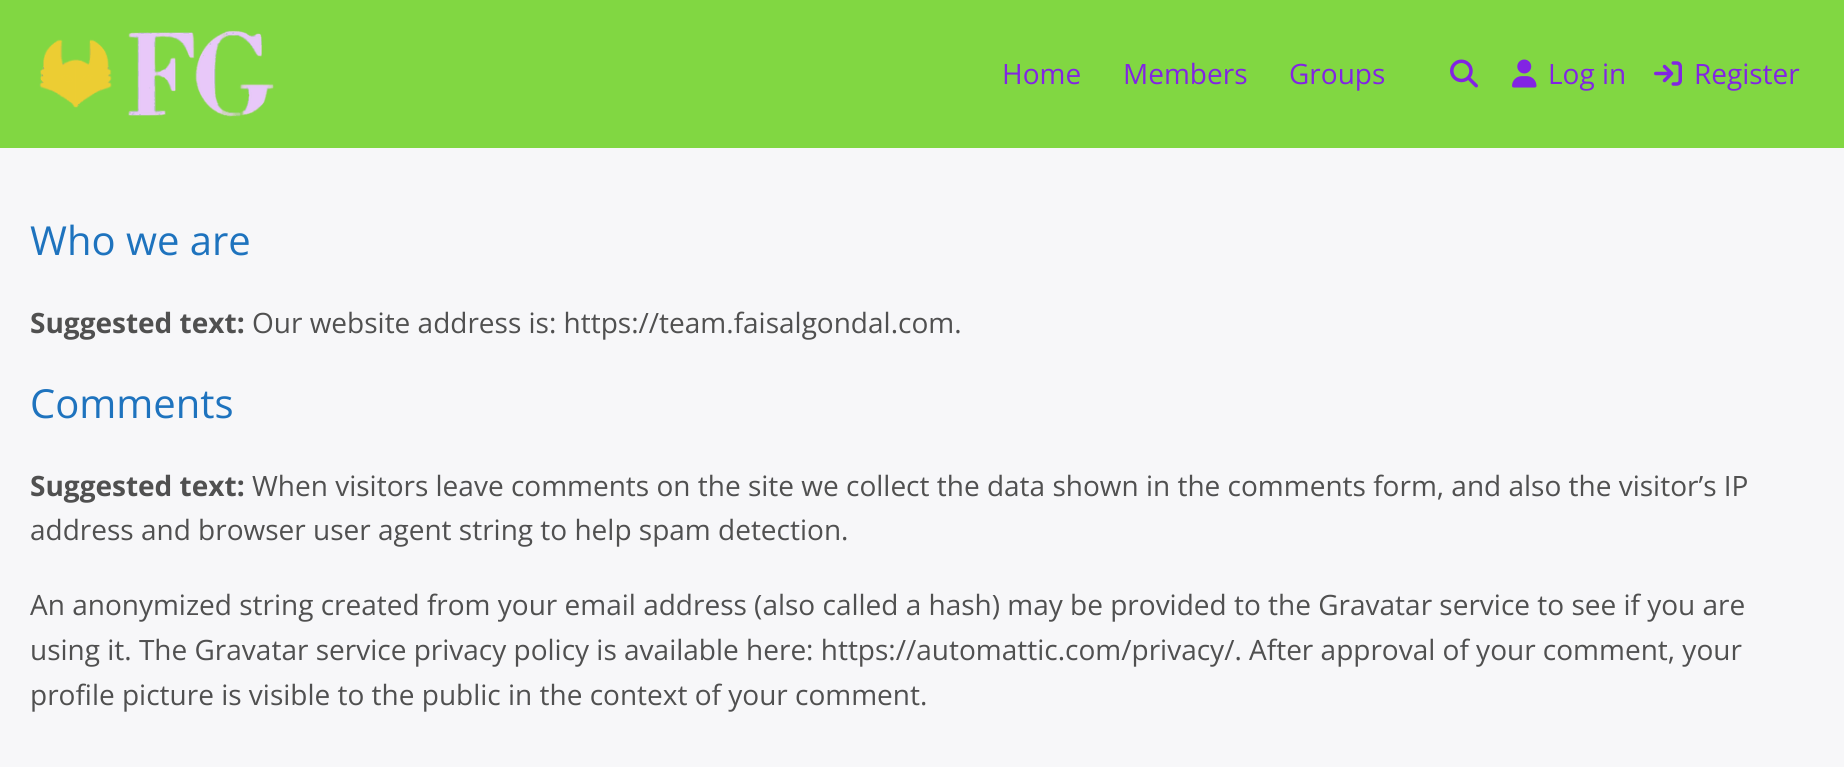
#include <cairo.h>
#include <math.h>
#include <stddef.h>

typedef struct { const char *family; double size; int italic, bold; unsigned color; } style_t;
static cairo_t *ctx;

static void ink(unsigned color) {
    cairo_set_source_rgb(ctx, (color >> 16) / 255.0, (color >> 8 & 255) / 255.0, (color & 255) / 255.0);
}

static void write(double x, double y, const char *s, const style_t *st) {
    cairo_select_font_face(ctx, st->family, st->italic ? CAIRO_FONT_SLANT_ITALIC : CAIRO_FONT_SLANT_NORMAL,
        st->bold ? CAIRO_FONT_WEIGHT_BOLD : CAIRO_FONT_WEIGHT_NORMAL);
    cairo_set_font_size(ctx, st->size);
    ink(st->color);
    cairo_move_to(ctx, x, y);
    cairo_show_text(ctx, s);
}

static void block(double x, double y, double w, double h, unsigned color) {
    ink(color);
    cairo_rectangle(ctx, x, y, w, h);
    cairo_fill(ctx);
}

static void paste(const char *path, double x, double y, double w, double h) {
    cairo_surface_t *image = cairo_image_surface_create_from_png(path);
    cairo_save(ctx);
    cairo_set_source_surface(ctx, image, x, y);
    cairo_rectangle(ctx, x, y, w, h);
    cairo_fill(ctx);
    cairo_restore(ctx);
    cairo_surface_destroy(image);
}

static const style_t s1 = {"Open Sans", 28, 0, 0, 0x8224e3};
static const style_t s2 = {"Open Sans", 40, 0, 0, 0x1e73be};
static const style_t s3 = {"Open Sans", 28, 0, 1, 0x505050};
static const style_t s4 = {"Open Sans", 28, 0, 0, 0x505050};

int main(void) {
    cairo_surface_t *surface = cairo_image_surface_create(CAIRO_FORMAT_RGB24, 1844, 767);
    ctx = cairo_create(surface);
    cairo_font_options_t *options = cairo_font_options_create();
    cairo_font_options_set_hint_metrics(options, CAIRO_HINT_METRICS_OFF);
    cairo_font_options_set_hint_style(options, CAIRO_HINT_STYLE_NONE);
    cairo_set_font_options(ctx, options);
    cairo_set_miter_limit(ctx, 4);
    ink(0xf7f7f9);
    cairo_paint(ctx);
    block(0, 0, 1844, 148, 0x81d742);
    paste("pic1.png", 39, 30, 235, 87);
    write(1002, 84, "Home", &s1);
    write(1123, 84, "Members", &s1);
    write(1289, 84, "Groups", &s1);
    paste("pic2.png", 1450, 59, 28, 29);
    paste("pic3.png", 1512, 59, 25, 29);
    write(1548, 84, "Log in", &s1);
    paste("pic4.png", 1654, 61, 28, 25);
    write(1694, 84, "Register", &s1);
    write(30, 255, "Who we are", &s2);
    write(30, 333, "Suggested text:", &s3);
    write(252, 333, "Our website address is: https://team.faisalgondal.com.", &s4);
    write(30, 418, "Comments", &s2);
    write(30, 496, "Suggested text:", &s3);
    write(252, 496, "When visitors leave comments on the site we collect the data shown in the comments form, and also the visitor’s IP", &s4);
    write(30, 540, "address and browser user agent string to help spam detection.", &s4);
    write(30, 615, "An anonymized string created from your email address (also called a hash) may be provided to the Gravatar service to see if you are", &s4);
    write(30, 660, "using it. The Gravatar service privacy policy is available here: https://automattic.com/privacy/. After approval of your comment, your", &s4);
    write(30, 705, "profile picture is visible to the public in the context of your comment.", &s4);
    cairo_surface_write_to_png(surface, "screenshot.png");
    cairo_font_options_destroy(options);
    cairo_destroy(ctx);
    cairo_surface_destroy(surface);
    return 0;
}
